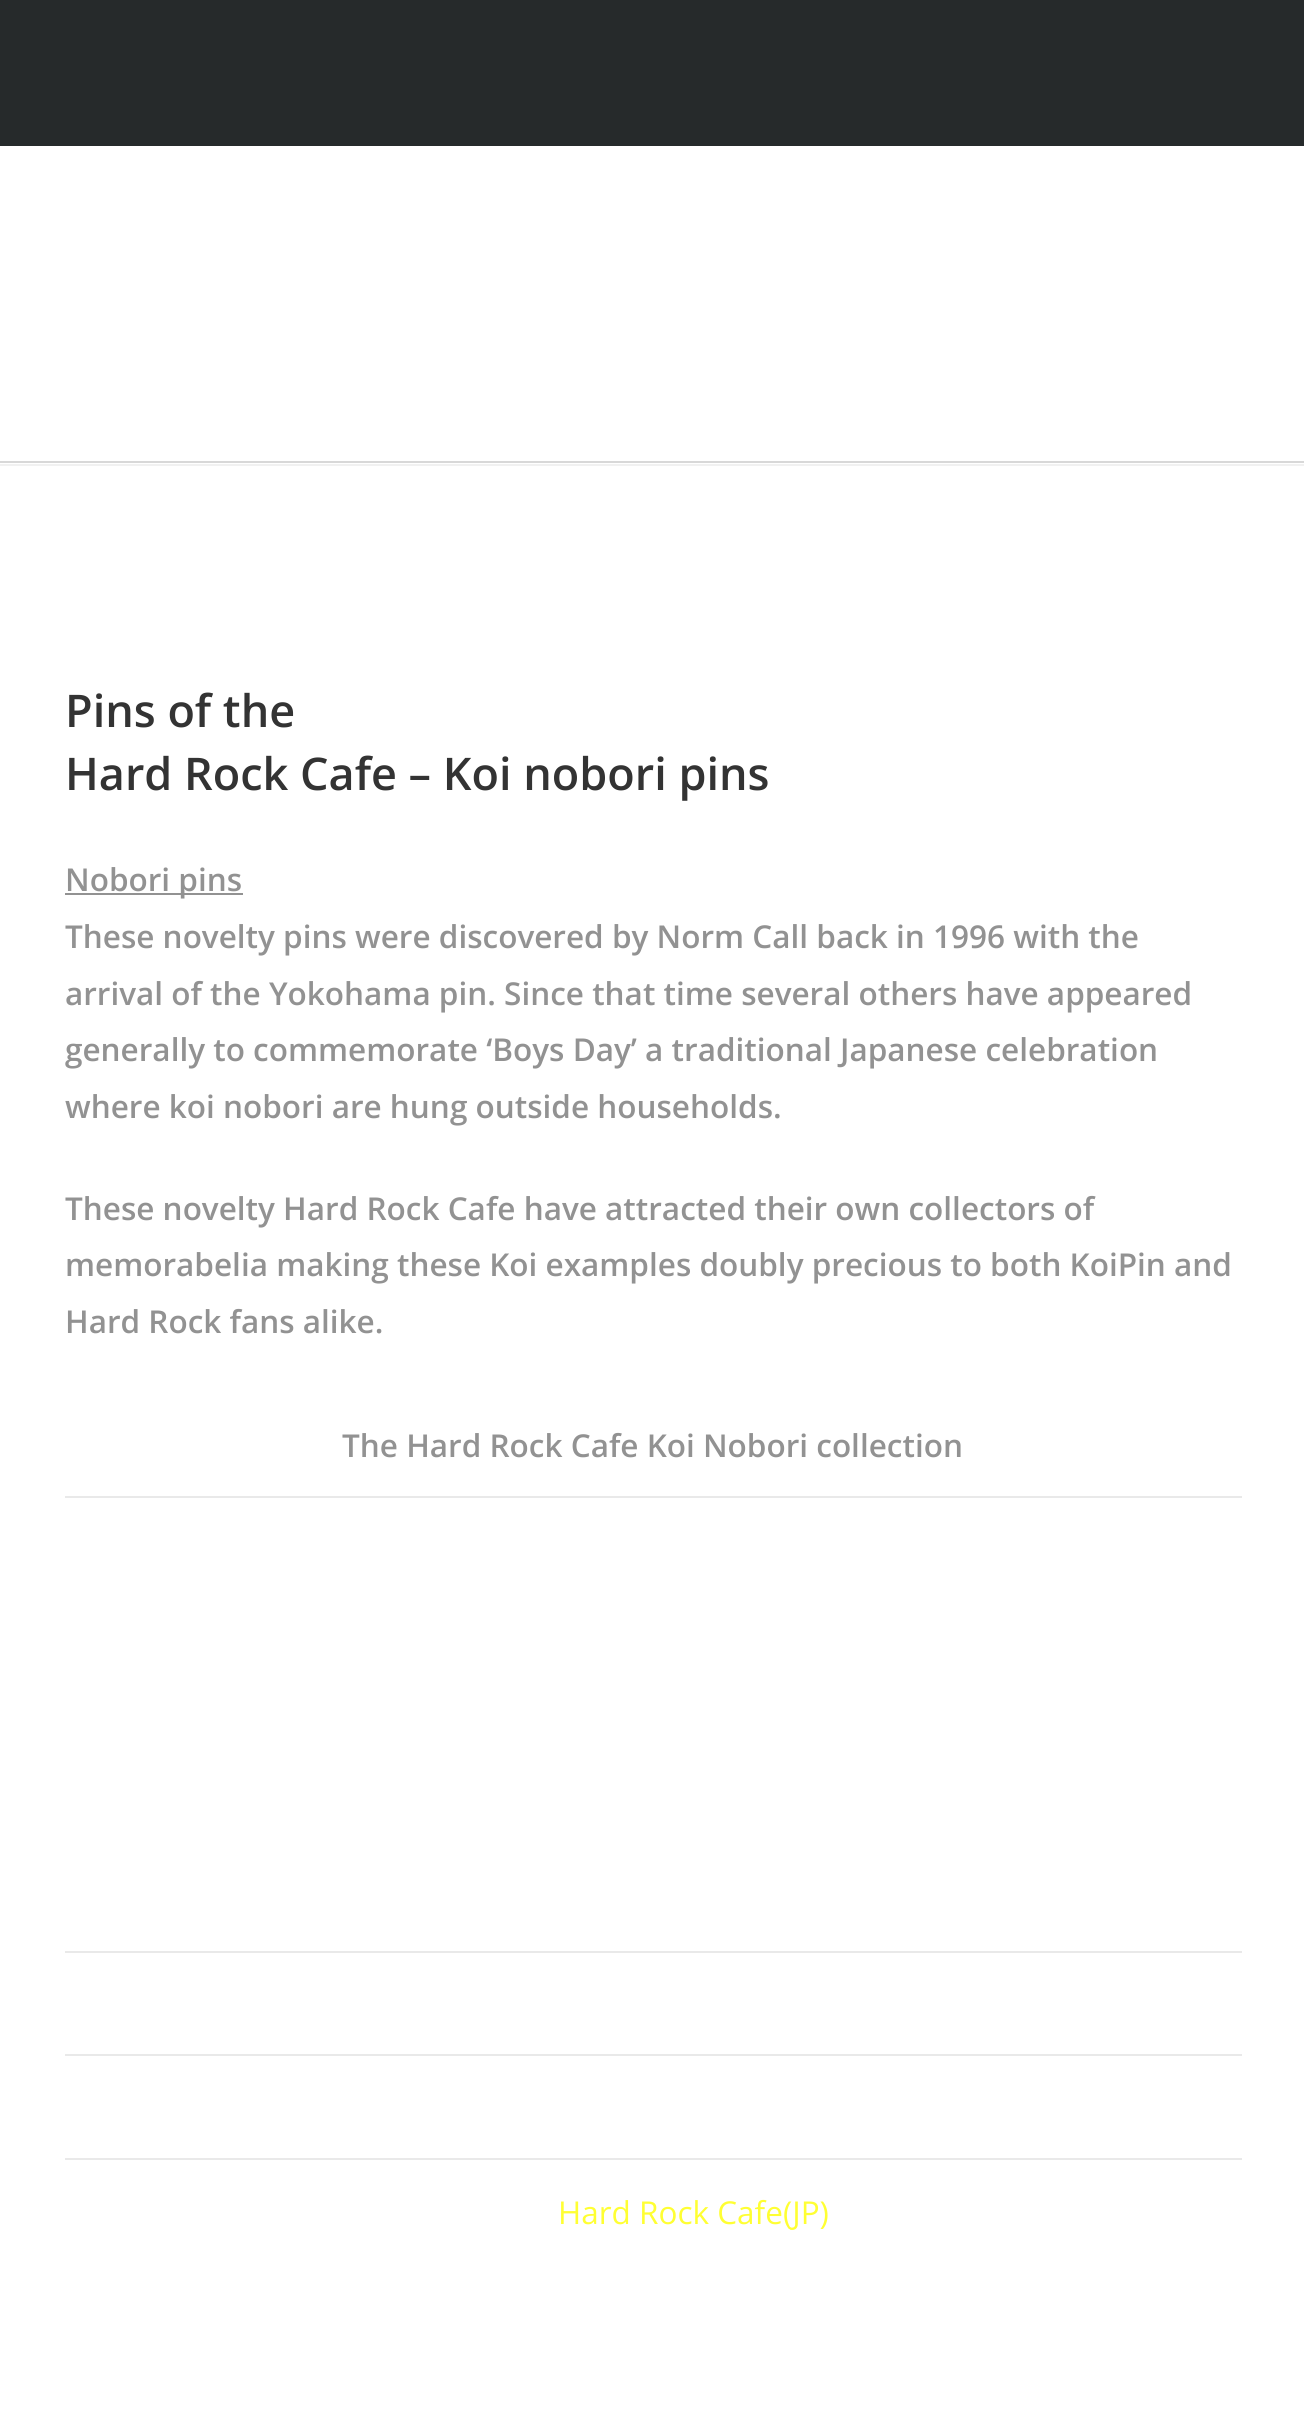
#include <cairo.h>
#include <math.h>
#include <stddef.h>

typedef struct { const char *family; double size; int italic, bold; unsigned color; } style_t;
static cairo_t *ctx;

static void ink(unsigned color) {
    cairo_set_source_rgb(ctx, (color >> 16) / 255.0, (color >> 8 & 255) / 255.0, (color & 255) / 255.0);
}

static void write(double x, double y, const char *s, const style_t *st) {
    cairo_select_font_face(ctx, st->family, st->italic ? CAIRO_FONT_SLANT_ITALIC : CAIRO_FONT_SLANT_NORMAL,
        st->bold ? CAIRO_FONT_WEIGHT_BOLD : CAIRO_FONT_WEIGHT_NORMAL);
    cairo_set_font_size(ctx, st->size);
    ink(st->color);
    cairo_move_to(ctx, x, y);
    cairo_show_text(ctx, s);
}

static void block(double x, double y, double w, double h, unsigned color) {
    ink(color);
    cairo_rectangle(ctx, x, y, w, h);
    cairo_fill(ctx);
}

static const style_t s1 = {"Open Sans SemiBold", 45, 0, 0, 0x333333};
static const style_t s2 = {"Open Sans SemiBold", 31.5, 0, 0, 0x929292};
static const style_t s3 = {"Open Sans", 31.5, 0, 0, 0xffff33};

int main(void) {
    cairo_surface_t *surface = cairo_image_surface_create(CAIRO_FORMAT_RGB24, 1304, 2429);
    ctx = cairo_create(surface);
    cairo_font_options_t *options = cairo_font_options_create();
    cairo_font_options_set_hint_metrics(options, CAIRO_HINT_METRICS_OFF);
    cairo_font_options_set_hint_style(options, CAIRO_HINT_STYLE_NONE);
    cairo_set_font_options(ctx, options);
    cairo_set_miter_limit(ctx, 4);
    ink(0xffffff);
    cairo_paint(ctx);
    block(0, 464, 1304, 2, 0xf1f1f1);
    block(0, 0, 1304, 146, 0x262a2b);
    block(0, 461, 1304, 2, 0xd8d8d8);
    write(65, 727, "Pins of the", &s1);
    write(65, 790, "Hard Rock Cafe – Koi nobori pins", &s1);
    block(65, 893, 178, 2, 0x929292);
    write(65, 891, "Nobori pins", &s2);
    write(65, 948, "These novelty pins were discovered by Norm Call back in 1996 with the", &s2);
    write(65, 1005, "arrival of the Yokohama pin. Since that time several others have appeared", &s2);
    write(65, 1061, "generally to commemorate ‘Boys Day’ a traditional Japanese celebration", &s2);
    write(65, 1118, "where koi nobori are hung outside households.", &s2);
    write(65, 1220, "These novelty Hard Rock Cafe have attracted their own collectors of", &s2);
    write(65, 1276, "memorabelia making these Koi examples doubly precious to both KoiPin and", &s2);
    write(65, 1333, "Hard Rock fans alike.", &s2);
    block(65, 1496, 1177, 2, 0xe9e9e9);
    write(342, 1457, "The Hard Rock Cafe Koi Nobori collection", &s2);
    block(65, 1951, 1177, 2, 0xe9e9e9);
    block(65, 2054, 1177, 2, 0xe9e9e9);
    block(65, 2158, 1177, 2, 0xe9e9e9);
    write(558, 2224, "Hard Rock Cafe(JP)", &s3);
    cairo_surface_write_to_png(surface, "screenshot.png");
    cairo_font_options_destroy(options);
    cairo_destroy(ctx);
    cairo_surface_destroy(surface);
    return 0;
}
